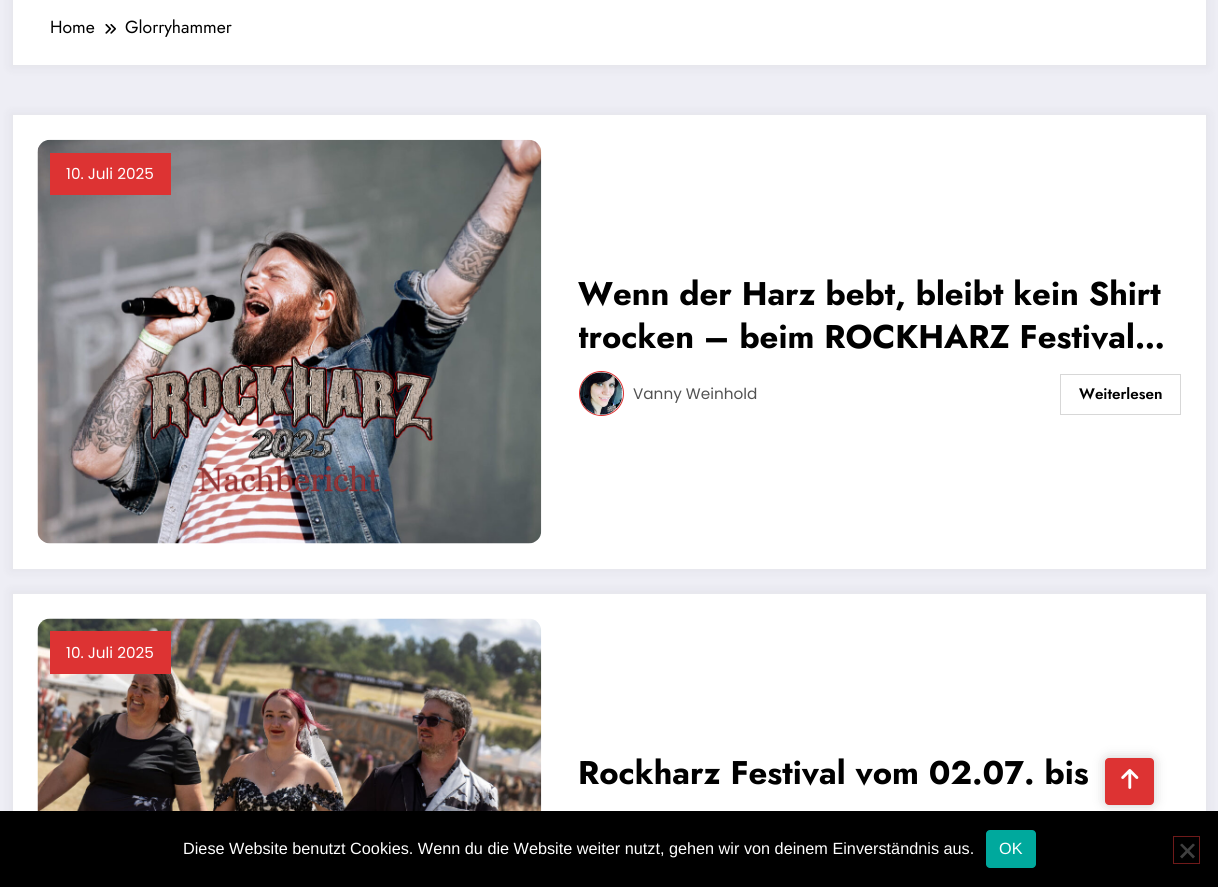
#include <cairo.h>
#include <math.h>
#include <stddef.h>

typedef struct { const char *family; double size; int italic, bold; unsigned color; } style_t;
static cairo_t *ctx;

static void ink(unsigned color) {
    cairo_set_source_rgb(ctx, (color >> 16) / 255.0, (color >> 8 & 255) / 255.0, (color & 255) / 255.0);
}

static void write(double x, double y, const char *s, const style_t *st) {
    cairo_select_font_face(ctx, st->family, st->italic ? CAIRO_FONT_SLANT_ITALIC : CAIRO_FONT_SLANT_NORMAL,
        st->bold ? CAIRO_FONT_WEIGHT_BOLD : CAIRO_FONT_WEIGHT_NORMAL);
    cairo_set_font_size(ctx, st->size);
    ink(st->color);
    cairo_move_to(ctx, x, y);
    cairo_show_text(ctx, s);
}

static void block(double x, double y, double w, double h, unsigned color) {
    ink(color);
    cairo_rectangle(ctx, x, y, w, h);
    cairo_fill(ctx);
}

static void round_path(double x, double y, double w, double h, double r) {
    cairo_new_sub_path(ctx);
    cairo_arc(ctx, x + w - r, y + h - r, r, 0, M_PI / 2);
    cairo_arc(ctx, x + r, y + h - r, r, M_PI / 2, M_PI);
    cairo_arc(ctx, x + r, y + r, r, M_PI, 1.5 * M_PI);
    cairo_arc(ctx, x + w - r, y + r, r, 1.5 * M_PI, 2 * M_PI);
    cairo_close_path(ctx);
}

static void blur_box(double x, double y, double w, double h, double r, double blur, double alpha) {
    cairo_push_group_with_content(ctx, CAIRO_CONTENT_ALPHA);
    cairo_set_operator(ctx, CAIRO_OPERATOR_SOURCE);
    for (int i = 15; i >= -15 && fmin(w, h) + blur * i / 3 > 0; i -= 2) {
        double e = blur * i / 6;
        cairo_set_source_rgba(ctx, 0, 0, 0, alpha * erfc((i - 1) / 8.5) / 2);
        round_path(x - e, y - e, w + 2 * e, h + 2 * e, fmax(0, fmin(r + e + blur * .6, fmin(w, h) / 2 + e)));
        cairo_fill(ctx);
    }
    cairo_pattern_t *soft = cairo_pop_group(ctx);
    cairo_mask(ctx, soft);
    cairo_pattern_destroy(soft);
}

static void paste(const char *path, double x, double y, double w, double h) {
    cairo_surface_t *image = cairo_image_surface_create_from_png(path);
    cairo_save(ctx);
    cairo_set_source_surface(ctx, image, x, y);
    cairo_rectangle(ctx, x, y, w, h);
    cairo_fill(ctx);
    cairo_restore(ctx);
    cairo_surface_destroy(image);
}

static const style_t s1 = {"Jost", 17.5, 0, 0, 0x000000};
static const style_t s2 = {"Poppins", 15.25, 0, 0, 0xffffff};
static const style_t s3 = {"Jost", 32.8, 0, 1, 0x000000};
static const style_t s4 = {"Poppins", 15.25, 0, 0, 0x525252};
static const style_t s5 = {"Jost SemiBold", 15.25, 0, 0, 0x000000};
static const style_t s6 = {"Liberation Sans", 16.25, 0, 0, 0xffffff};

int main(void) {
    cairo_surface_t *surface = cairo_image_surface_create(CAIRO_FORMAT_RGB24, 1218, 887);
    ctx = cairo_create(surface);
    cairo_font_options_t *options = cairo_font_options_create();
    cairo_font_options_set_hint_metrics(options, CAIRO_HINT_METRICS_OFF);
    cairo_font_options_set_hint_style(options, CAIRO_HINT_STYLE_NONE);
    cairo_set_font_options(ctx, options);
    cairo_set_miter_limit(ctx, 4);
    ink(0xeeeef5);
    cairo_paint(ctx);
    ink(0x171723);
    blur_box(10, -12, 1199, 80, 0, 5, 0.05);
    block(13, 0, 1193, 65, 0xffffff);
    write(50, 33, "Home", &s1);
    paste("pic1.png", 105, 24, 11, 10);
    write(125, 33, "Glorryhammer", &s1);
    ink(0x171723);
    blur_box(10, 113, 1199, 458, 0, 5, 0.05);
    block(13, 115, 1193, 454, 0xffffff);
    paste("pic2.png", 37, 139, 505, 405);
    block(50, 153, 121, 42, 0xdd3333);
    write(66, 179, "10. Juli 2025", &s2);
    write(578, 305, "Wenn der Harz bebt, bleibt kein Shirt", &s3);
    cairo_save(ctx);
    cairo_rectangle(ctx, 579, 273, 602, 85);
    cairo_clip(ctx);
    write(578, 348, "trocken – beim ROCKHARZ Festival…", &s3);
    cairo_restore(ctx);
    cairo_new_path(ctx);
    cairo_arc(ctx, 601.5, 393.5, 22, 0, 2 * M_PI);
    ink(0xdd3333);
    cairo_set_line_width(ctx, 1);
    cairo_stroke(ctx);
    paste("pic3.png", 580, 372, 43, 43);
    write(633, 399, "Vanny Weinhold", &s4);
    cairo_rectangle(ctx, 1060.5, 374.5, 120, 40);
    ink(0xd7d7d7);
    cairo_stroke(ctx);
    write(1079, 399, "Weiterlesen", &s5);
    ink(0x171723);
    blur_box(10, 591, 1199, 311, 0, 5, 0.05);
    block(13, 594, 1193, 217, 0xffffff);
    paste("pic4.png", 37, 618, 505, 193);
    block(50, 631, 121, 43, 0xdd3333);
    write(66, 658, "10. Juli 2025", &s2);
    write(578, 784, "Rockharz Festival vom 02.07. bis", &s3);
    ink(0x000000);
    blur_box(1105, 758, 49, 47, 4, 6, 0.2);
    ink(0xdd3333);
    round_path(1105, 758, 49, 47, 4);
    cairo_fill(ctx);
    paste("pic5.png", 1121, 769, 18, 20);
    block(0, 811, 1218, 76, 0x000000);
    write(183, 854, "Diese Website benutzt Cookies. Wenn du die Website weiter nutzt, gehen wir von deinem Einverständnis aus.", &s6);
    ink(0x00a99d);
    round_path(986, 830, 50, 38, 4);
    cairo_fill(ctx);
    write(999, 854, "OK", &s6);
    cairo_rectangle(ctx, 1173.5, 836.5, 26, 27);
    ink(0x6f1a1a);
    cairo_stroke(ctx);
    ink(0x404040);
    cairo_new_path(ctx);
    cairo_move_to(ctx, 1193, 843.5);
    cairo_line_to(ctx, 1195, 845);
    cairo_line_to(ctx, 1182, 858.5);
    cairo_line_to(ctx, 1180, 856.5);
    cairo_close_path(ctx);
    cairo_fill(ctx);
    cairo_new_path(ctx);
    cairo_move_to(ctx, 1180, 845);
    cairo_line_to(ctx, 1182, 843.5);
    cairo_line_to(ctx, 1195, 856.5);
    cairo_line_to(ctx, 1193, 858.5);
    cairo_close_path(ctx);
    cairo_fill(ctx);
    cairo_surface_write_to_png(surface, "screenshot.png");
    cairo_font_options_destroy(options);
    cairo_destroy(ctx);
    cairo_surface_destroy(surface);
    return 0;
}
